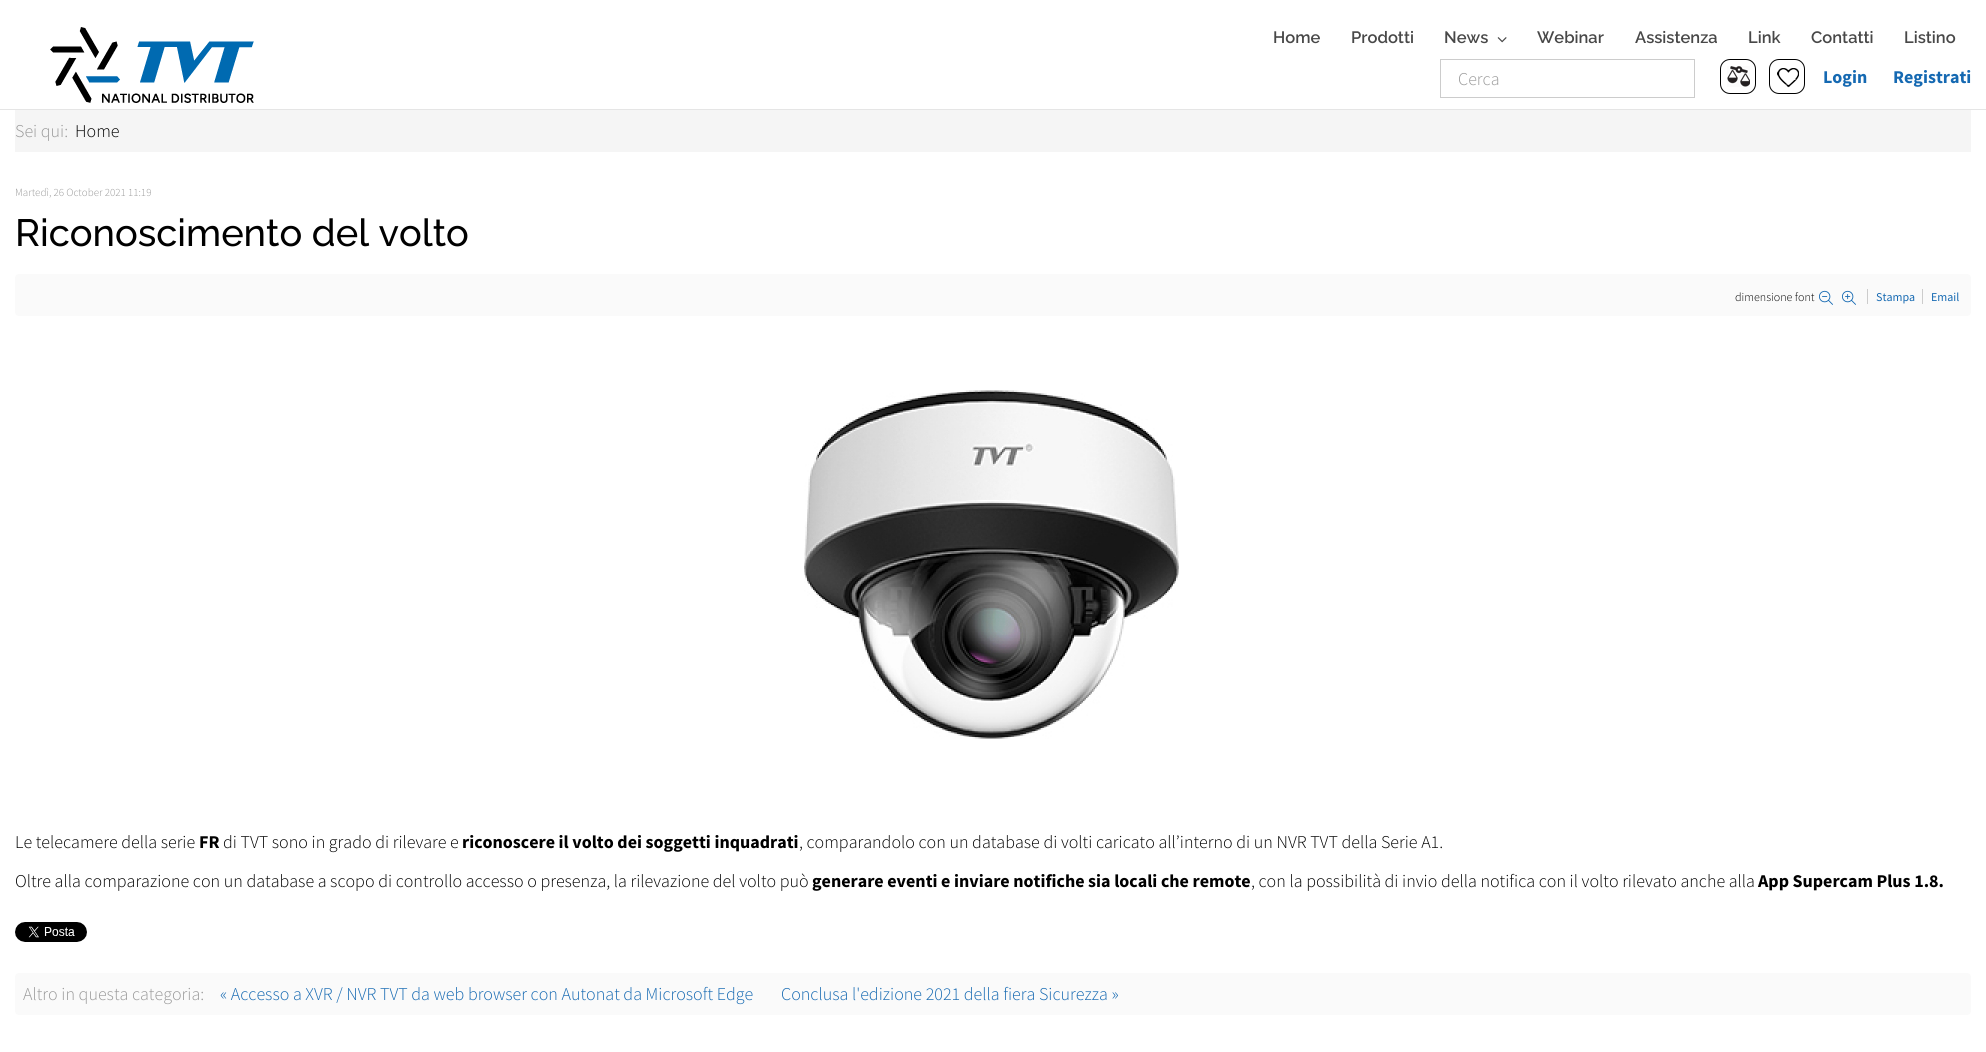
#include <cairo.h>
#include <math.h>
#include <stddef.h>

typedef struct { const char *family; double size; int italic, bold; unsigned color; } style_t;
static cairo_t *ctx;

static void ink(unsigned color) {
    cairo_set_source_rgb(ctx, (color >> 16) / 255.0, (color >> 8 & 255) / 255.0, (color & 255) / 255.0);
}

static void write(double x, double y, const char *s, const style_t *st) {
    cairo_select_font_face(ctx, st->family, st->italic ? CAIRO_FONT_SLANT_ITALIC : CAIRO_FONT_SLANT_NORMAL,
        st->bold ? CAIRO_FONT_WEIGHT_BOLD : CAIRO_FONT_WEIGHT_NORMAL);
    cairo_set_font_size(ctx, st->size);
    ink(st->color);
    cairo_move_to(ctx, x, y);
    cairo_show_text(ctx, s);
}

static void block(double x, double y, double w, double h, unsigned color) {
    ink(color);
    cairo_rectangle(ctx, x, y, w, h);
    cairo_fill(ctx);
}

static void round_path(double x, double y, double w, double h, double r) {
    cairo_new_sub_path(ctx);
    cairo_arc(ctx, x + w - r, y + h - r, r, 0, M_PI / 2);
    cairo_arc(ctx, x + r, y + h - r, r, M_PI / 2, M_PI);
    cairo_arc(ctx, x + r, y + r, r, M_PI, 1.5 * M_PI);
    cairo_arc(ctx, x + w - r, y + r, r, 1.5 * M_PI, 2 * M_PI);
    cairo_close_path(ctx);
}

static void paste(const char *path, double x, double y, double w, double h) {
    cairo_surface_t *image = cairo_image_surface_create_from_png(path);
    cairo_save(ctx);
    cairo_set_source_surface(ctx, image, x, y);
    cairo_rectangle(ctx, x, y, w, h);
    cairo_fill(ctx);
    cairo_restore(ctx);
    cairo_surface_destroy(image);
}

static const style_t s1 = {"Raleway SemiBold", 16.5, 0, 0, 0x484848};
static const style_t s2 = {"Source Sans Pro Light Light", 18, 0, 0, 0x999999};
static const style_t s3 = {"Source Sans Pro", 18, 0, 1, 0x1569b2};
static const style_t s4 = {"Source Sans Pro Light Light", 18, 0, 0, 0x000000};
static const style_t s5 = {"Source Sans Pro Light Light", 11, 0, 0, 0x999999};
static const style_t s6 = {"Raleway Medium", 38, 0, 0, 0x000000};
static const style_t s7 = {"Source Sans Pro Light Light", 12, 0, 0, 0x000000};
static const style_t s8 = {"Source Sans Pro", 12, 0, 0, 0x1569b2};
static const style_t s9 = {"Source Sans Pro", 18, 0, 1, 0x000000};
static const style_t s10 = {"Source Sans Pro Light Light", 18, 0, 0, 0x1569b2};

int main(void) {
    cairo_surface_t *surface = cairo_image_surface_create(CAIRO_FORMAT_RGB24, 1986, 1052);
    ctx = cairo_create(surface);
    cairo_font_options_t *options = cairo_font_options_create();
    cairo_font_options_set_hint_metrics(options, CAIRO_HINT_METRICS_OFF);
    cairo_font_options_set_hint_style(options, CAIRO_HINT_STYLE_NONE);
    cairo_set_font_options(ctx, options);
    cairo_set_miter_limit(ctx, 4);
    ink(0xffffff);
    cairo_paint(ctx);
    block(0, 109, 1986, 1, 0xe5e5e5);
    paste("pic1.png", 50, 27, 204, 76);
    write(1273, 43, "Home", &s1);
    write(1351, 43, "Prodotti", &s1);
    write(1444, 43, "News", &s1);
    paste("pic2.png", 1497, 37, 10, 6);
    write(1537, 43, "Webinar", &s1);
    write(1635, 43, "Assistenza", &s1);
    write(1748, 43, "Link", &s1);
    write(1811, 43, "Contatti", &s1);
    write(1904, 43, "Listino", &s1);
    cairo_rectangle(ctx, 1440.5, 59.5, 254, 38);
    ink(0xcccccc);
    cairo_set_line_width(ctx, 1);
    cairo_stroke(ctx);
    write(1458, 85, "Cerca", &s2);
    round_path(1720.5, 59.5, 35, 34, 9.5);
    ink(0x000000);
    cairo_stroke(ctx);
    round_path(1769.5, 59.5, 35, 34, 9.5);
    cairo_stroke(ctx);
    paste("pic3.png", 1727, 66, 23, 21);
    paste("pic4.png", 1777, 68, 22, 20);
    write(1823, 83, "Login", &s3);
    write(1893, 83, "Registrati", &s3);
    block(15, 110, 1956, 42, 0xf5f5f5);
    write(15, 137, "Sei qui:", &s2);
    write(75, 137, "Home", &s4);
    write(15, 196, "Martedì, 26 October 2021 11:19", &s5);
    write(15, 246, "Riconoscimento del volto", &s6);
    ink(0xfafafa);
    round_path(15, 274, 1956, 42, 4);
    cairo_fill(ctx);
    write(1735, 301, "dimensione font", &s7);
    paste("pic5.png", 1819, 290, 14, 15);
    paste("pic6.png", 1842, 290, 14, 15);
    write(1876, 301, "Stampa", &s8);
    block(1867, 289, 1, 15, 0xcccccc);
    write(1931, 301, "Email", &s8);
    block(1922, 289, 1, 15, 0xcccccc);
    paste("pic7.png", 804, 390, 375, 349);
    write(15, 848, "Le telecamere della serie", &s4);
    write(199, 848, "FR", &s9);
    write(223, 848, "di TVT sono in grado di rilevare e", &s4);
    write(462, 848, "riconoscere il volto dei soggetti inquadrati", &s9);
    write(799, 848, ", comparandolo con un database di volti caricato all’interno di un NVR TVT della Serie A1.", &s4);
    write(15, 887, "Oltre alla comparazione con un database a scopo di controllo accesso o presenza, la rilevazione del volto può", &s4);
    write(812, 887, "generare eventi e inviare notifiche sia locali che remote", &s9);
    write(1251, 887, ", con la possibilità di invio della notifica con il volto rilevato anche alla", &s4);
    write(1758, 887, "App Supercam Plus 1.8.", &s9);
    paste("pic8.png", 15, 922, 72, 20);
    ink(0xfafafa);
    round_path(15, 973, 1956, 42, 4);
    cairo_fill(ctx);
    write(23, 1000, "Altro in questa categoria:", &s2);
    write(220, 1000, "« Accesso a XVR / NVR TVT da web browser con Autonat da Microsoft Edge", &s10);
    write(781, 1000, "Conclusa l'edizione 2021 della fiera Sicurezza »", &s10);
    cairo_surface_write_to_png(surface, "screenshot.png");
    cairo_font_options_destroy(options);
    cairo_destroy(ctx);
    cairo_surface_destroy(surface);
    return 0;
}
